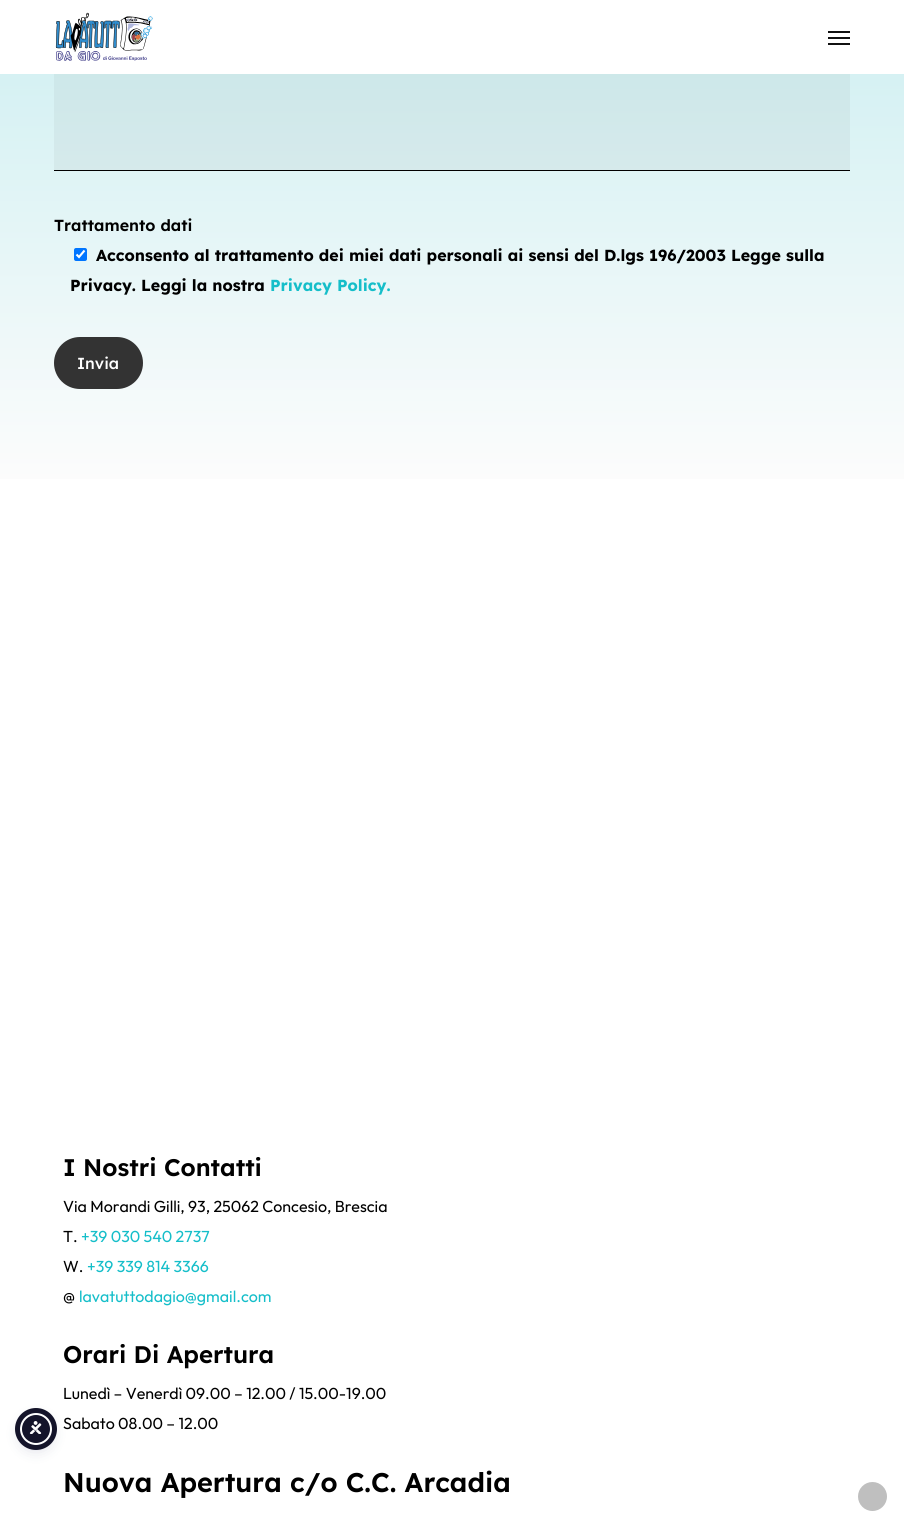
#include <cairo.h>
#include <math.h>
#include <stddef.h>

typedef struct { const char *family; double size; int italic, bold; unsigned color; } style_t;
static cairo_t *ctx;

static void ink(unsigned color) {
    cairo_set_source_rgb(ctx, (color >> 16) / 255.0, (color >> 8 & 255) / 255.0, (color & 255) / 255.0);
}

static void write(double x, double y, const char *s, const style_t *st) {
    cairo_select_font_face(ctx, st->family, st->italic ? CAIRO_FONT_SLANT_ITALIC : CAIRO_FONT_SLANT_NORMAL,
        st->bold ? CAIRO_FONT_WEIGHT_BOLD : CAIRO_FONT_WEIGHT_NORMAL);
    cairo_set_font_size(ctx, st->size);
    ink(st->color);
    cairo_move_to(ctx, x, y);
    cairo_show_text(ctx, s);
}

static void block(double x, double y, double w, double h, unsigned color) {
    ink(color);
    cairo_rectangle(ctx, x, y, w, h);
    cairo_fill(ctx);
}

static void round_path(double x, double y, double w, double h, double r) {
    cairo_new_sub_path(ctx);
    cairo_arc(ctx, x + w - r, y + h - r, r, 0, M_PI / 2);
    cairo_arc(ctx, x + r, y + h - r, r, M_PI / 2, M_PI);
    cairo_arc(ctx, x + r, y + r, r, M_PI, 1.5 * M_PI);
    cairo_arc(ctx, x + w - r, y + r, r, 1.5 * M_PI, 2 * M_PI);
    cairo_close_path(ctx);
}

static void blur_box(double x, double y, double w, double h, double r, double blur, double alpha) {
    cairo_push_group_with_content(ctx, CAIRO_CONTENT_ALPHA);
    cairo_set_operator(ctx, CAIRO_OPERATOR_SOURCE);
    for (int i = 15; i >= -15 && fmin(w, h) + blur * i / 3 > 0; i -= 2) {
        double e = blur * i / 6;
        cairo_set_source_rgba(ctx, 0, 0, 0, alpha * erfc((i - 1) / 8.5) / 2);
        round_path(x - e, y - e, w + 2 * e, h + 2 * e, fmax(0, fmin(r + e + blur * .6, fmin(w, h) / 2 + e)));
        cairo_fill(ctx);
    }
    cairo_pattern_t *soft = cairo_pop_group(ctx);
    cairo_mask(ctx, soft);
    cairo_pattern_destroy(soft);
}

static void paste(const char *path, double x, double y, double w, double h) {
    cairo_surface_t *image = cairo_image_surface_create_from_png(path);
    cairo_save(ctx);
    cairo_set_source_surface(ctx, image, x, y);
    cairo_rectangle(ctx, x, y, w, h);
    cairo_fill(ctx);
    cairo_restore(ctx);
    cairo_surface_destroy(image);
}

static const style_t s1 = {"Lexend Deca SemiBold", 16, 0, 0, 0x000000};
static const style_t s2 = {"Lexend Deca", 16, 0, 1, 0x000000};
static const style_t s3 = {"Lexend Deca", 16, 0, 1, 0x15bec9};
static const style_t s4 = {"Lexend Deca Medium", 16, 0, 0, 0xffffff};
static const style_t s5 = {"Lexend Deca SemiBold", 24, 0, 0, 0x000000};
static const style_t s6 = {"Outfit", 16, 0, 0, 0x000000};
static const style_t s7 = {"Outfit", 16, 0, 0, 0x15bec9};
static const style_t s8 = {"Lexend Deca SemiBold", 27, 0, 0, 0x000000};

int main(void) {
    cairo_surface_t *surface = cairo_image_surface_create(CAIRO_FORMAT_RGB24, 904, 1525);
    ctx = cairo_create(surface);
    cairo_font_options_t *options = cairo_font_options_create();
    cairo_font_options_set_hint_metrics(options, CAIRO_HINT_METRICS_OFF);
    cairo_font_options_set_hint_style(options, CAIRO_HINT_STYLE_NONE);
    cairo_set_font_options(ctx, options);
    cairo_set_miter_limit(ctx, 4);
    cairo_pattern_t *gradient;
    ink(0xffffff);
    cairo_paint(ctx);
    paste("pic1.png", 55, 12, 98, 49);
    block(828, 31, 22, 2, 0x111111);
    block(828, 43, 22, 2, 0x111111);
    block(828, 37, 22, 2, 0x111111);
    ink(0x5d6494);
    blur_box(20, 1415, 32, 32, 16, 2, 0.2);
    ink(0x252c61);
    blur_box(20, 1418, 32, 32, 16, 7.5, 0.15);
    ink(0x14142a);
    cairo_arc(ctx, 36, 1429, 15, 0, 2 * M_PI);
    cairo_fill_preserve(ctx);
    ink(0xffffff);
    cairo_stroke(ctx);
    cairo_arc(ctx, 36, 1429, 18.5, 0, 2 * M_PI);
    ink(0x14142a);
    cairo_set_line_width(ctx, 5);
    cairo_stroke(ctx);
    paste("pic2.png", 29, 1421, 13, 13);
    gradient = cairo_pattern_create_linear(452, -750, 452, 479);
    cairo_pattern_add_color_stop_rgba(gradient, 0, 0.529, 0.859, 0.882, 1);
    cairo_pattern_add_color_stop_rgba(gradient, 1, 0.988, 0.988, 0.988, 1);
    cairo_set_source(ctx, gradient);
    cairo_pattern_destroy(gradient);
    cairo_rectangle(ctx, 0, 74, 904, 405);
    cairo_fill(ctx);
    gradient = cairo_pattern_create_linear(452, -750, 452, 479);
    cairo_pattern_add_color_stop_rgba(gradient, 0, 0.51, 0.824, 0.847, 1);
    cairo_pattern_add_color_stop_rgba(gradient, 1, 0.949, 0.949, 0.949, 1);
    cairo_set_source(ctx, gradient);
    cairo_pattern_destroy(gradient);
    cairo_rectangle(ctx, 54, 74, 796, 96);
    cairo_fill(ctx);
    block(54, 170, 796, 1, 0x000000);
    write(54, 231, "Trattamento dati", &s1);
    ink(0x0075ff);
    round_path(74, 248, 13, 13, 2);
    cairo_fill(ctx);
    cairo_new_path(ctx);
    cairo_move_to(ctx, 76.5, 254.5);
    cairo_line_to(ctx, 79, 257);
    cairo_line_to(ctx, 84.5, 250.5);
    ink(0xffffff);
    cairo_set_line_width(ctx, 2.1);
    cairo_stroke(ctx);
    write(96, 261, "Acconsento al trattamento dei miei dati personali ai sensi del D.lgs 196/2003 Legge sulla", &s2);
    write(70, 291, "Privacy. Leggi la nostra", &s2);
    write(270, 291, "Privacy Policy.", &s3);
    ink(0x333333);
    round_path(54, 337, 89, 52, 26);
    cairo_fill(ctx);
    write(77, 369, "Invia", &s4);
    write(63, 1176, "I Nostri Contatti", &s5);
    write(63, 1212, "Via Morandi Gilli, 93, 25062 Concesio, Brescia", &s6);
    write(63, 1242, "T.", &s6);
    write(81, 1242, "+39 030 540 2737", &s7);
    write(63, 1272, "W.", &s6);
    write(87, 1272, "+39 339 814 3366", &s7);
    write(63, 1302, "@", &s6);
    write(79, 1302, "lavatuttodagio@gmail.com", &s7);
    write(63, 1363, "Orari Di Apertura", &s5);
    write(63, 1399, "Lunedì – Venerdì 09.00 – 12.00 / 15.00-19.00", &s6);
    write(63, 1429, "Sabato 08.00 – 12.00", &s6);
    write(63, 1492, "Nuova Apertura c/o C.C. Arcadia", &s8);
    ink(0xbfbfbf);
    cairo_new_path(ctx);
    cairo_arc(ctx, 872.5, 1496.5, 14.5, 0, 2 * M_PI);
    cairo_fill(ctx);
    cairo_surface_write_to_png(surface, "screenshot.png");
    cairo_font_options_destroy(options);
    cairo_destroy(ctx);
    cairo_surface_destroy(surface);
    return 0;
}
